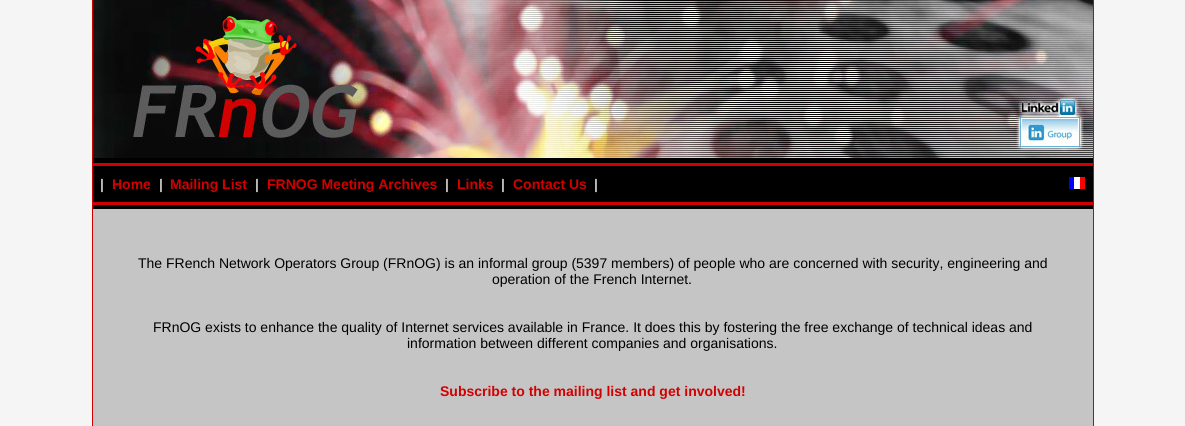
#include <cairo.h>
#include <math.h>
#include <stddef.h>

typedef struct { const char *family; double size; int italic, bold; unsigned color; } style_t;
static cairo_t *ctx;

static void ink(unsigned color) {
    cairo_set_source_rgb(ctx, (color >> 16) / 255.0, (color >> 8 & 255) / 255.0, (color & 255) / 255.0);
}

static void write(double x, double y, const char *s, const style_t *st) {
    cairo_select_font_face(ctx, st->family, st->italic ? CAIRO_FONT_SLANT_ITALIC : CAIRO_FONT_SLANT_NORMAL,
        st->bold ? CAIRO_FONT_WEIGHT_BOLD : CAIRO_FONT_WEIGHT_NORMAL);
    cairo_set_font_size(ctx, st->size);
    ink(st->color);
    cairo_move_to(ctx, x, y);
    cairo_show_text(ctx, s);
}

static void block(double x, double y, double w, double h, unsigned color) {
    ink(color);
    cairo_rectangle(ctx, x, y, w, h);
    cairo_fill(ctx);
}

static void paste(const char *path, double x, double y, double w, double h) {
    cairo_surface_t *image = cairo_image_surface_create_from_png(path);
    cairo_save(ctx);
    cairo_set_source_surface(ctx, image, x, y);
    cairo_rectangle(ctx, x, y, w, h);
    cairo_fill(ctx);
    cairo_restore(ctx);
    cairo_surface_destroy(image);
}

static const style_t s1 = {"Liberation Sans", 14, 0, 1, 0xc5c5c5};
static const style_t s2 = {"Liberation Sans", 14, 0, 1, 0xd20000};
static const style_t s3 = {"Liberation Sans", 14, 0, 0, 0x000000};

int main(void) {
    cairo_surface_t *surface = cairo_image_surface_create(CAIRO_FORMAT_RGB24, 1185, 426);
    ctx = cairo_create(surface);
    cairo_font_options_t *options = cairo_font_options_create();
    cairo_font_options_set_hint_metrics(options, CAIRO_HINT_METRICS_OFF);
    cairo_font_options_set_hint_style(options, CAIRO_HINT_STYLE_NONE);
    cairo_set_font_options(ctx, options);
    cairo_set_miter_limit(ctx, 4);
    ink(0xf5f5f5);
    cairo_paint(ctx);
    block(92, 0, 1, 426, 0xd20000);
    paste("pic1.png", 93, 0, 1000, 158);
    block(93, 158, 1000, 5, 0x000000);
    block(93, 163, 1000, 3, 0xd20000);
    block(93, 166, 1000, 36, 0x000000);
    write(100, 189, "|", &s1);
    write(112, 189, "Home", &s2);
    write(159, 189, "|", &s1);
    write(170, 189, "Mailing List", &s2);
    write(255, 189, "|", &s1);
    write(267, 189, "FRNOG Meeting Archives", &s2);
    write(445, 189, "|", &s1);
    write(457, 189, "Links", &s2);
    write(501, 189, "|", &s1);
    write(513, 189, "Contact Us", &s2);
    write(594, 189, "|", &s1);
    paste("pic2.png", 1069, 177, 16, 12);
    block(93, 202, 1000, 3, 0xd20000);
    block(93, 205, 1000, 4, 0x000000);
    block(93, 209, 1000, 217, 0xc5c5c5);
    write(138, 268, "The FRench Network Operators Group (FRnOG) is an informal group (5397 members) of people who are concerned with security, engineering and", &s3);
    write(492, 284, "operation of the French Internet.", &s3);
    write(153, 332, "FRnOG exists to enhance the quality of Internet services available in France. It does this by fostering the free exchange of technical ideas and", &s3);
    write(407, 348, "information between different companies and organisations.", &s3);
    write(440, 396, "Subscribe to the mailing list and get involved!", &s2);
    block(1093, 0, 1, 426, 0xd20000);
    cairo_surface_write_to_png(surface, "screenshot.png");
    cairo_font_options_destroy(options);
    cairo_destroy(ctx);
    cairo_surface_destroy(surface);
    return 0;
}
